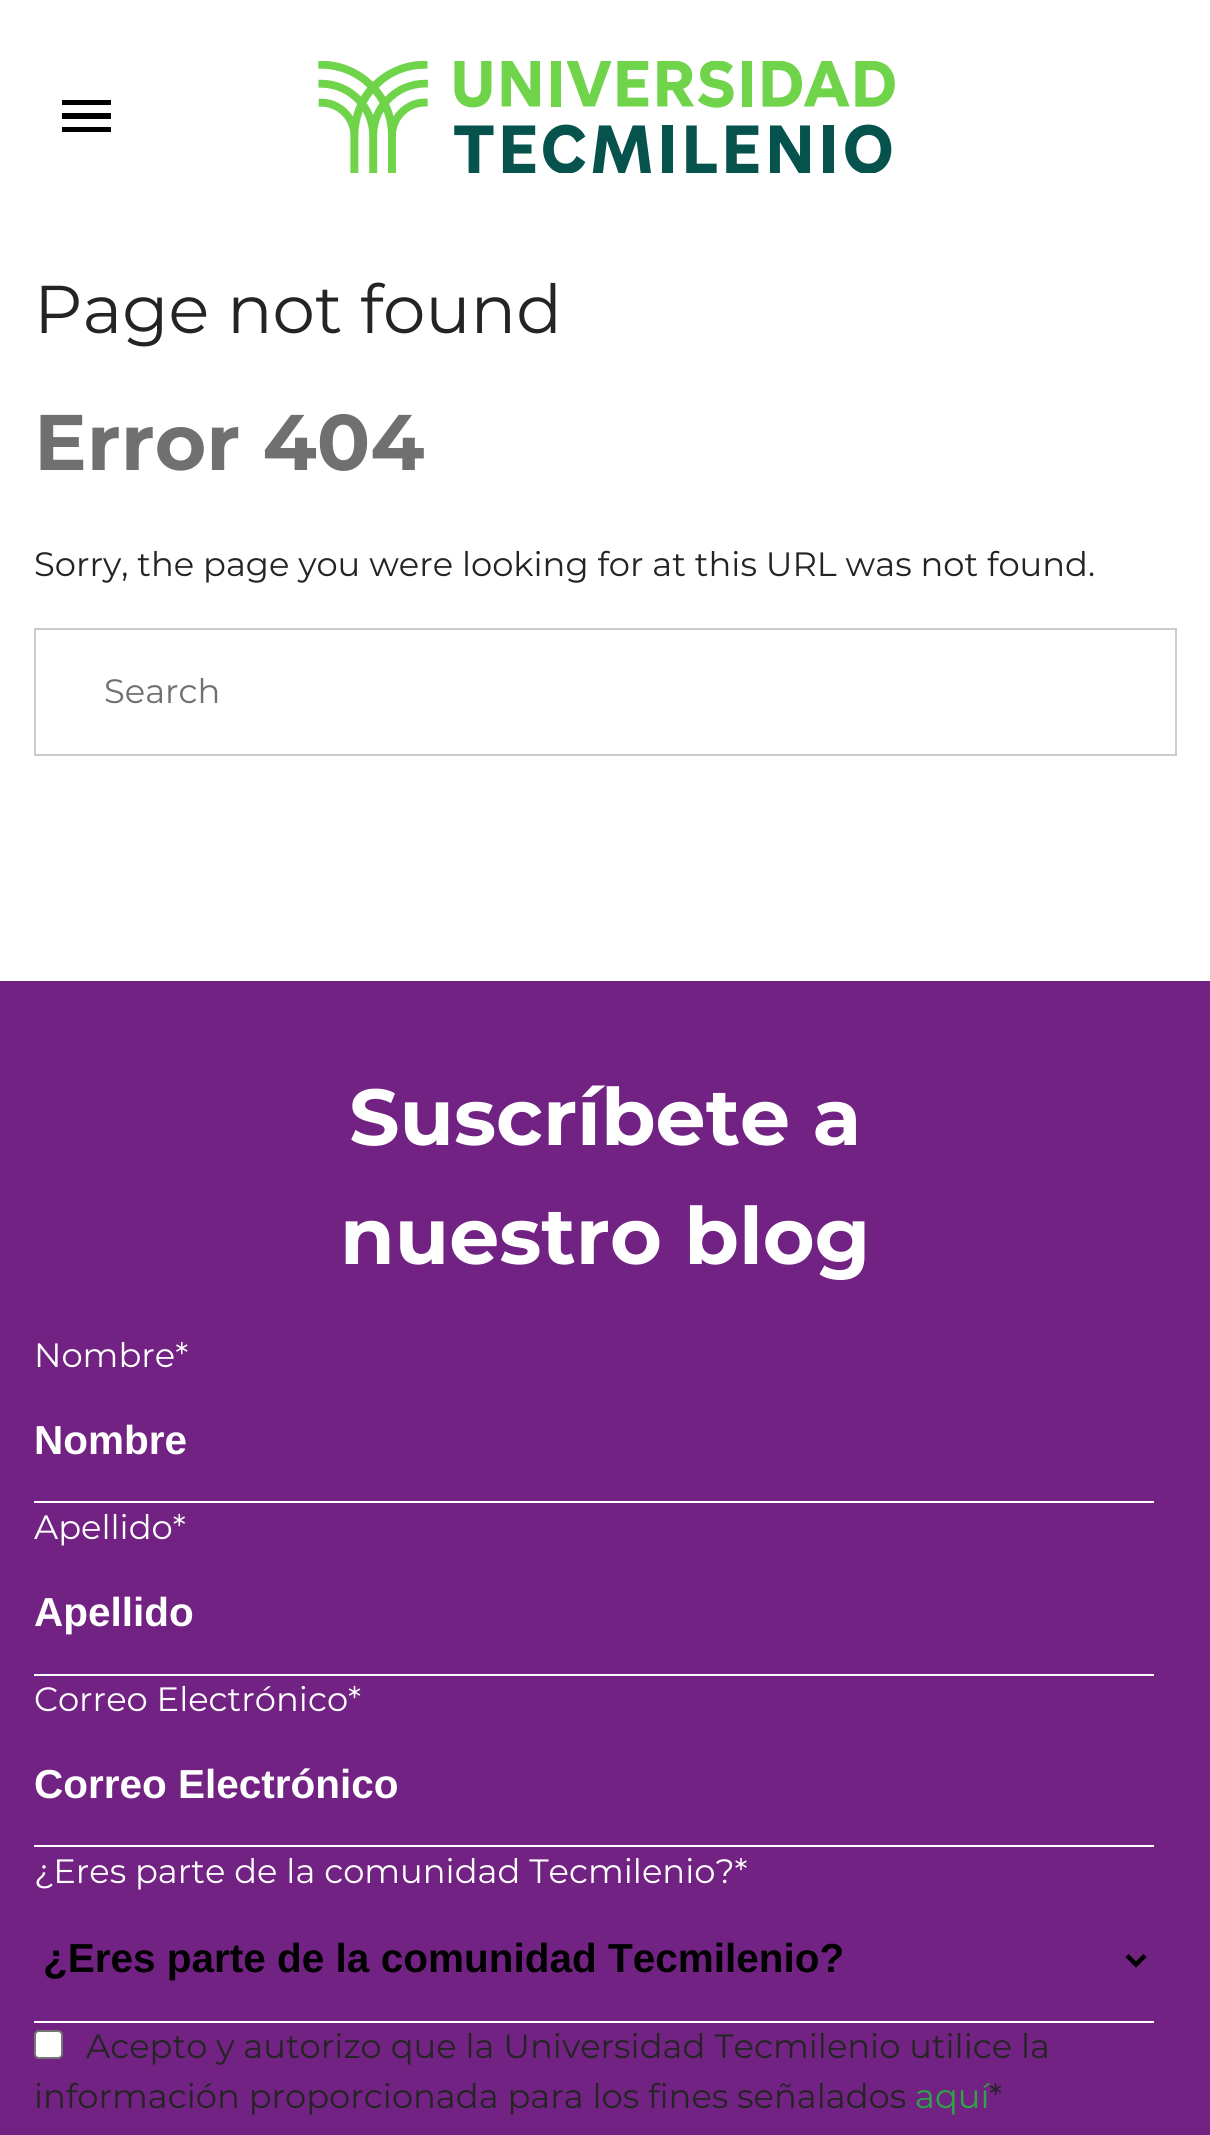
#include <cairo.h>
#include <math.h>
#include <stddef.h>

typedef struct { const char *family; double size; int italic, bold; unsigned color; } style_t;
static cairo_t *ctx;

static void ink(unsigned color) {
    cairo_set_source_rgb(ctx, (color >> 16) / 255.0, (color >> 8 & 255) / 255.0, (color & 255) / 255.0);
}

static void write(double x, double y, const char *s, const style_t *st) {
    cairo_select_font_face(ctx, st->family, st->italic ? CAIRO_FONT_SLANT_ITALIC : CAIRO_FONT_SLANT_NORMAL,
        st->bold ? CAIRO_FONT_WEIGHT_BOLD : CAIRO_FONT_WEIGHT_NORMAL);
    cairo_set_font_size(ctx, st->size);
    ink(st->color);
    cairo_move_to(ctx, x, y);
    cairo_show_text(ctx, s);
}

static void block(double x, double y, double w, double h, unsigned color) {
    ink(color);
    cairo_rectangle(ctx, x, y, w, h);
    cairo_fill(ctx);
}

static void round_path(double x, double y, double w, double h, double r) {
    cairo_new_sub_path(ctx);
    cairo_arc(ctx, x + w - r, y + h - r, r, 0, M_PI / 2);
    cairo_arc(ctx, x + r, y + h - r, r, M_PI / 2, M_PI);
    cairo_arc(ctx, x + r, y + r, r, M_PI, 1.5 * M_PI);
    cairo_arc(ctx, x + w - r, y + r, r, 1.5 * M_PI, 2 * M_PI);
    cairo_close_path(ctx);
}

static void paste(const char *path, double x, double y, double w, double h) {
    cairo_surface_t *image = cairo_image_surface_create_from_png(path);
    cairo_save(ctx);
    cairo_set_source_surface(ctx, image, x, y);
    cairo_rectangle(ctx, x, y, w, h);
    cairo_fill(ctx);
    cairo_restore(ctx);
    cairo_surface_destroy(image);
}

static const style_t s1 = {"Montserrat", 67.5, 0, 0, 0x242424};
static const style_t s2 = {"Montserrat", 78.75, 0, 1, 0x707070};
static const style_t s3 = {"Montserrat", 33.75, 0, 0, 0x242424};
static const style_t s4 = {"Montserrat", 33.75, 0, 0, 0x707070};
static const style_t s5 = {"Montserrat", 79.25, 0, 1, 0xffffff};
static const style_t s6 = {"Montserrat", 33.75, 0, 0, 0xffffff};
static const style_t s7 = {"Liberation Sans", 40.5, 0, 1, 0xffffff};
static const style_t s8 = {"Liberation Sans", 40.5, 0, 1, 0x000000};
static const style_t s9 = {"Montserrat", 33.75, 0, 0, 0x2da546};

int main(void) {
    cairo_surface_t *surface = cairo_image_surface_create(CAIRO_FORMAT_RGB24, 1210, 2135);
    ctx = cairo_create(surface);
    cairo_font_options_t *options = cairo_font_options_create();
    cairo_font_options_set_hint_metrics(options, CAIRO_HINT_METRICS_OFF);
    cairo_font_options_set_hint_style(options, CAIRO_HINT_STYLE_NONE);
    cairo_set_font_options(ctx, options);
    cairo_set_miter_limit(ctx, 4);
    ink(0xffffff);
    cairo_paint(ctx);
    ink(0x000000);
    cairo_new_path(ctx);
    cairo_move_to(ctx, 62, 132);
    cairo_line_to(ctx, 111, 132);
    cairo_line_to(ctx, 111, 127);
    cairo_line_to(ctx, 62, 127);
    cairo_close_path(ctx);
    cairo_move_to(ctx, 62, 119);
    cairo_line_to(ctx, 111, 119);
    cairo_line_to(ctx, 111, 113);
    cairo_line_to(ctx, 62, 113);
    cairo_close_path(ctx);
    cairo_move_to(ctx, 62, 100);
    cairo_line_to(ctx, 62, 105);
    cairo_line_to(ctx, 111, 105);
    cairo_line_to(ctx, 111, 100);
    cairo_close_path(ctx);
    cairo_fill(ctx);
    paste("pic1.png", 318, 61, 577, 112);
    write(34, 333, "Page not found", &s1);
    write(34, 470, "Error 404", &s2);
    write(34, 576, "Sorry, the page you were looking for at this URL was not found.", &s3);
    cairo_rectangle(ctx, 35, 629, 1141, 126);
    ink(0xcccccc);
    cairo_stroke(ctx);
    write(104, 703, "Search", &s4);
    block(0, 981, 1210, 1154, 0x722282);
    write(349, 1145, "Suscríbete a", &s5);
    write(340, 1264, "nuestro blog", &s5);
    write(34, 1367, "Nombre*", &s6);
    block(34, 1501, 1120, 2, 0xffffff);
    write(34, 1454, "Nombre", &s7);
    write(34, 1539, "Apellido*", &s6);
    block(34, 1674, 1120, 2, 0xffffff);
    write(34, 1626, "Apellido", &s7);
    write(34, 1711, "Correo Electrónico*", &s6);
    block(34, 1845, 1120, 2, 0xffffff);
    write(34, 1798, "Correo Electrónico", &s7);
    write(34, 1883, "¿Eres parte de la comunidad Tecmilenio?*", &s6);
    block(34, 2021, 1120, 2, 0xffffff);
    cairo_new_path(ctx);
    cairo_move_to(ctx, 1127, 1955.5);
    cairo_line_to(ctx, 1136, 1964.5);
    cairo_line_to(ctx, 1145, 1955.5);
    ink(0x000000);
    cairo_set_line_width(ctx, 4.5);
    cairo_stroke(ctx);
    write(43, 1972, "¿Eres parte de la comunidad Tecmilenio?", &s8);
    ink(0xffffff);
    round_path(35, 2031, 27, 27, 4);
    cairo_fill_preserve(ctx);
    ink(0x767676);
    cairo_set_line_width(ctx, 2);
    cairo_stroke(ctx);
    write(86, 2058, "Acepto y autorizo que la Universidad Tecmilenio utilice la", &s3);
    write(34, 2108, "información proporcionada para los fines señalados", &s3);
    write(915, 2108, "aquí", &s9);
    write(989, 2108, "*", &s3);
    cairo_surface_write_to_png(surface, "screenshot.png");
    cairo_font_options_destroy(options);
    cairo_destroy(ctx);
    cairo_surface_destroy(surface);
    return 0;
}
